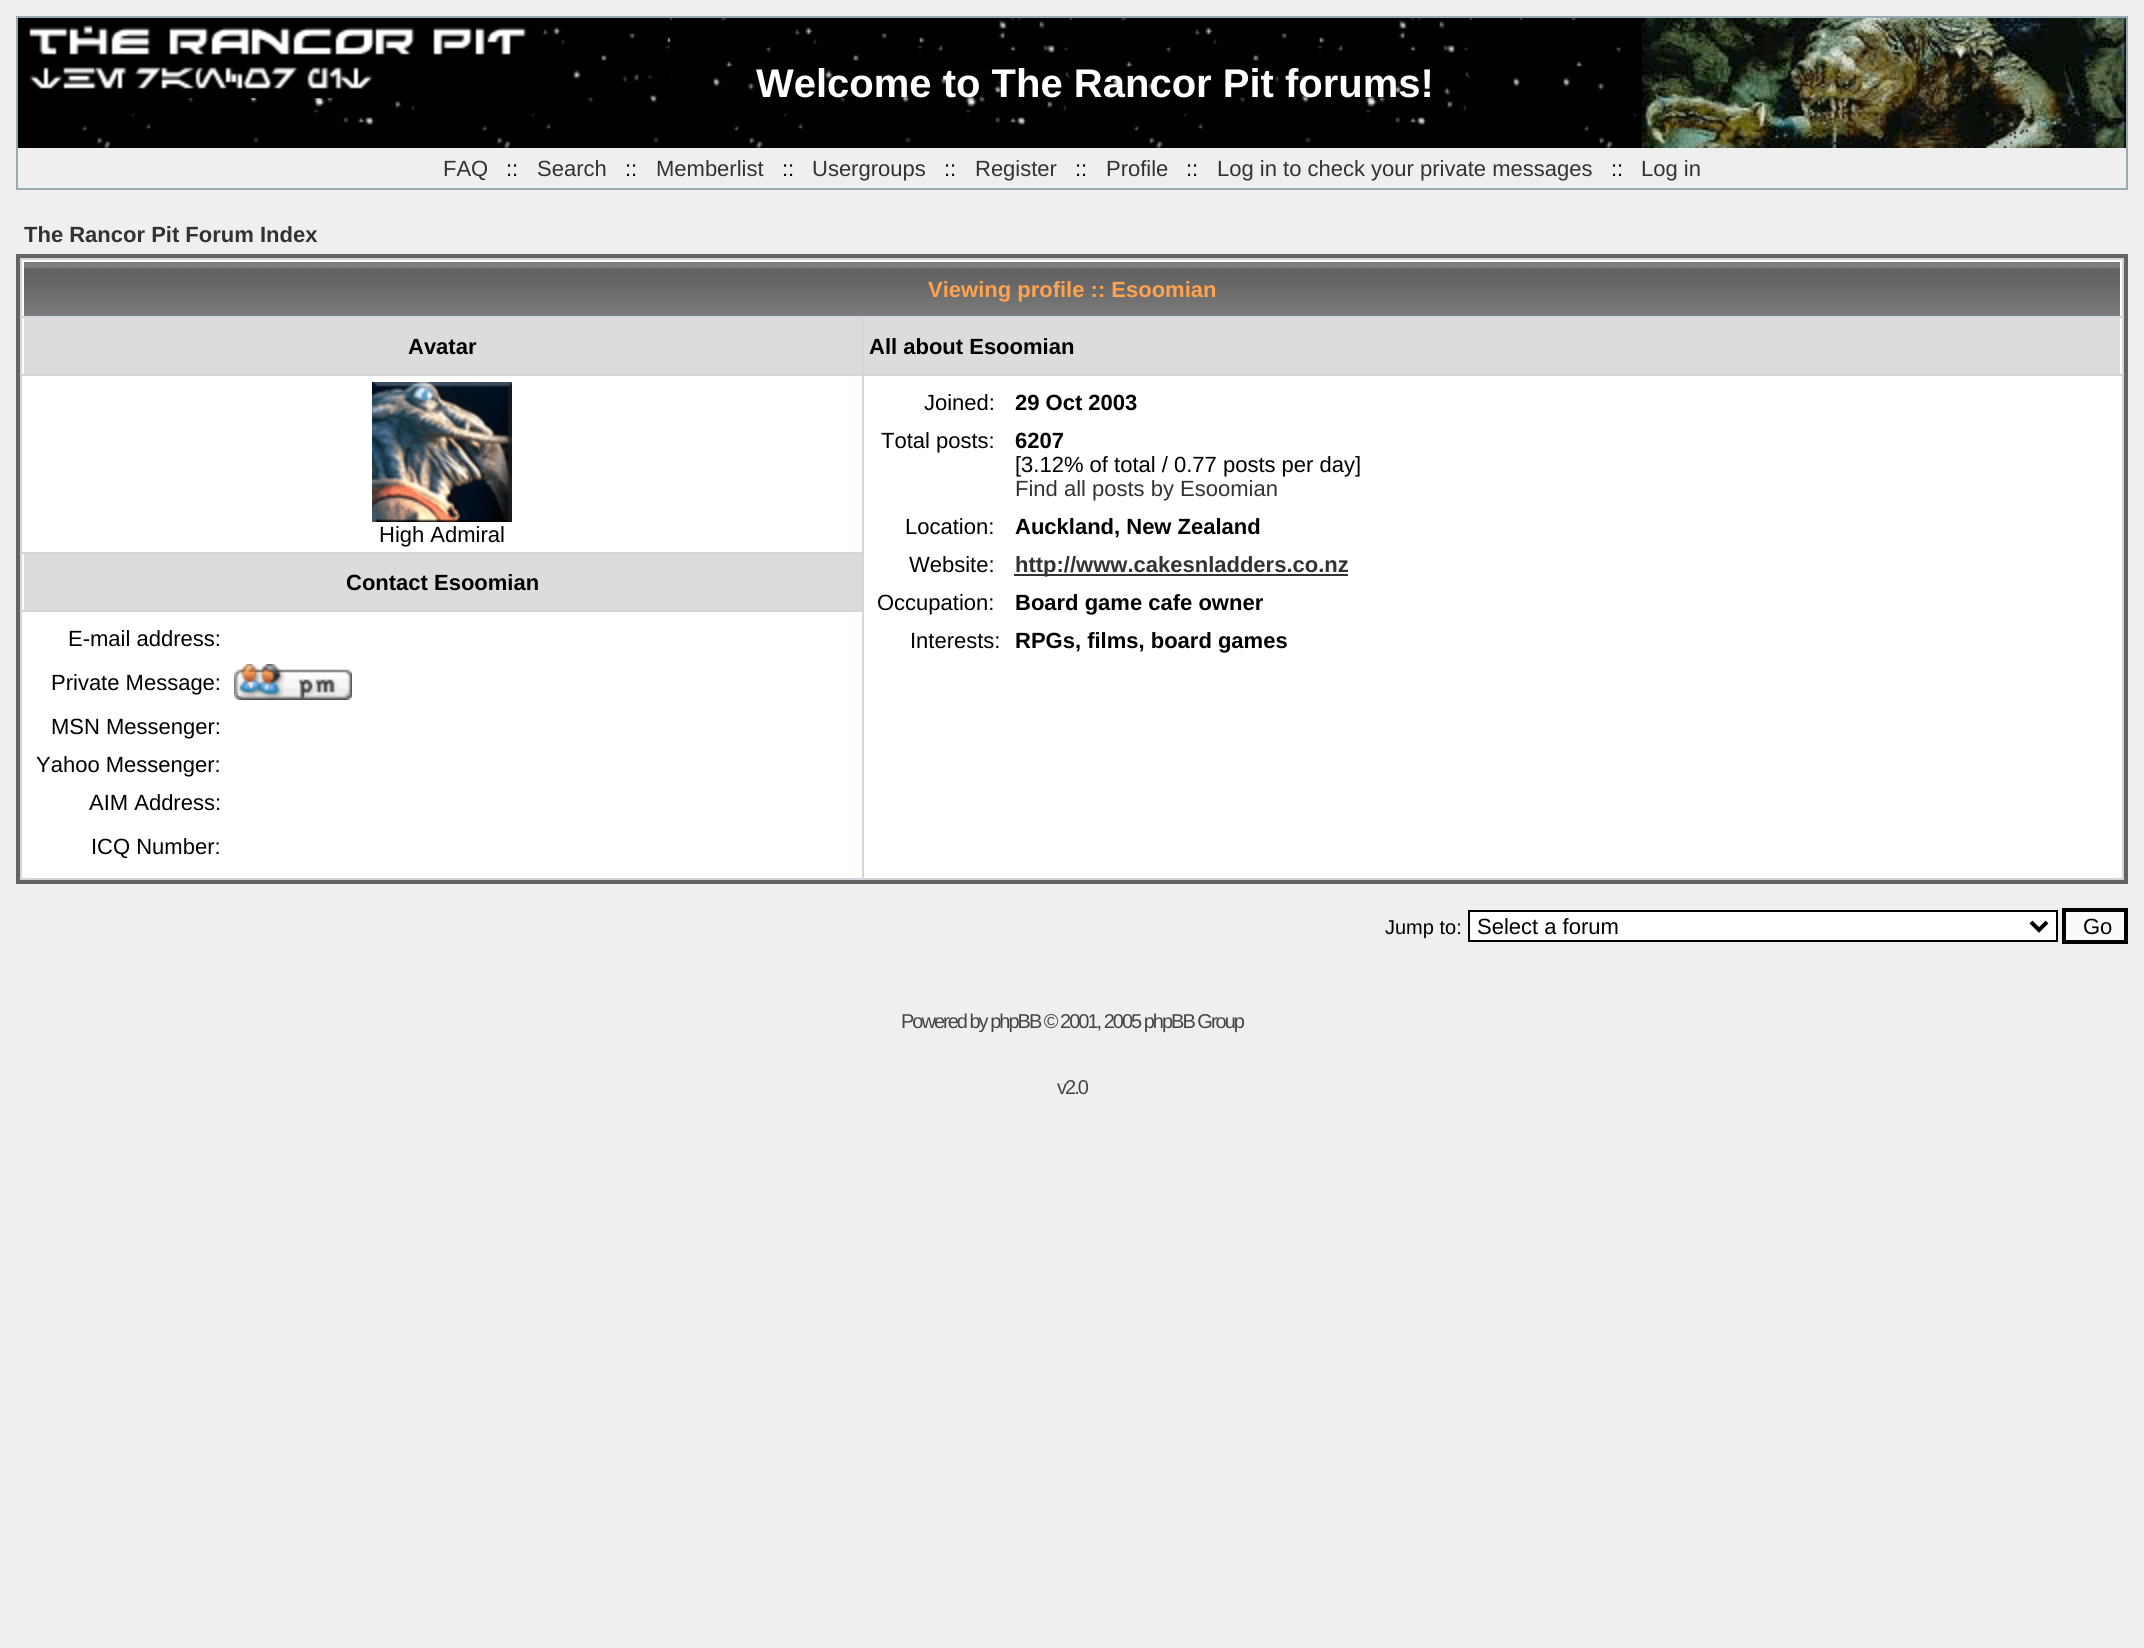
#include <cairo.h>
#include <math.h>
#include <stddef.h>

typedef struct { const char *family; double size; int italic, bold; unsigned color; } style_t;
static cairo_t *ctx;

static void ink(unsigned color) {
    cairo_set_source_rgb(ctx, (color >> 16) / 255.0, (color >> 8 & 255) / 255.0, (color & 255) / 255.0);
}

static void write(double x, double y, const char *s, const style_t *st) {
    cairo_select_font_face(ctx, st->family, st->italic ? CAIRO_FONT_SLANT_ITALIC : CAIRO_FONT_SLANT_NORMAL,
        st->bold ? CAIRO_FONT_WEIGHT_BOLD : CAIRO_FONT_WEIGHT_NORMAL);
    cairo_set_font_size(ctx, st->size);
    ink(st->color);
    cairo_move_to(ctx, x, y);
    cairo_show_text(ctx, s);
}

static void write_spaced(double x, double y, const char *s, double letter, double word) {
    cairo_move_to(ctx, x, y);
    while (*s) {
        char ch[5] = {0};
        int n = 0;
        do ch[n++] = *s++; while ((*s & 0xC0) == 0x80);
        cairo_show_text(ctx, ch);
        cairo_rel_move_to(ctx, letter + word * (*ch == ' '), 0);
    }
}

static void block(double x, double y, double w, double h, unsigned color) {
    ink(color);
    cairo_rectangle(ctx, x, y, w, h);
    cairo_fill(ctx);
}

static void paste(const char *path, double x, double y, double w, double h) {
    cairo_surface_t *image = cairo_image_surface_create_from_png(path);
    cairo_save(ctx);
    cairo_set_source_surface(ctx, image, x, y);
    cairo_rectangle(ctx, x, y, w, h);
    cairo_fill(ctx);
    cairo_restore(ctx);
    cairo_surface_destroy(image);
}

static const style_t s1 = {"Liberation Sans", 40, 0, 1, 0xffffff};
static const style_t s2 = {"Liberation Sans", 22, 0, 0, 0x323232};
static const style_t s3 = {"Liberation Sans", 22, 0, 0, 0x000000};
static const style_t s4 = {"Liberation Sans", 22, 0, 1, 0x323232};
static const style_t s5 = {"Liberation Sans", 22, 0, 1, 0xffa34f};
static const style_t s6 = {"Liberation Sans", 22, 0, 1, 0x000000};
static const style_t s7 = {"Liberation Sans", 20, 0, 0, 0x000000};

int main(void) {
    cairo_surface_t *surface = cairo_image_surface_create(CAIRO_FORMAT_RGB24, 2144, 1648);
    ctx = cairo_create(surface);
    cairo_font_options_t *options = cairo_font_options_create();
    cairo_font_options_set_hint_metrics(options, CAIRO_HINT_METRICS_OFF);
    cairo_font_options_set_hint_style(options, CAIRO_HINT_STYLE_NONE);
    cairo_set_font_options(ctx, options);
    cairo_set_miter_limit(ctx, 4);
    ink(0xefefef);
    cairo_paint(ctx);
    cairo_rectangle(ctx, 17, 17, 2110, 172);
    ink(0x98aab1);
    cairo_stroke(ctx);
    paste("pic1.png", 18, 18, 652, 130);
    paste("pic2.png", 18, 18, 509, 80);
    paste("pic3.png", 670, 18, 850, 130);
    write(756, 97, "Welcome to The Rancor Pit forums!", &s1);
    paste("pic4.png", 1520, 18, 509, 130);
    paste("pic5.png", 1642, 18, 484, 130);
    write(443, 176, "FAQ", &s2);
    write(506, 176, "::", &s3);
    write(537, 176, "Search", &s2);
    write(625, 176, "::", &s3);
    write(656, 176, "Memberlist", &s2);
    write(782, 176, "::", &s3);
    write(812, 176, "Usergroups", &s2);
    write(944, 176, "::", &s3);
    write(975, 176, "Register", &s2);
    write(1075, 176, "::", &s3);
    write(1106, 176, "Profile", &s2);
    write(1186, 176, "::", &s3);
    write(1217, 176, "Log in to check your private messages", &s2);
    write(1611, 176, "::", &s3);
    write(1641, 176, "Log in", &s2);
    write(24, 242, "The Rancor Pit Forum Index", &s4);
    ink(0xd1d7dc);
    cairo_rectangle(ctx, 18, 256, 2108, 626);
    cairo_fill_preserve(ctx);
    ink(0x646464);
    cairo_set_line_width(ctx, 4);
    cairo_stroke(ctx);
    paste("pic6.png", 24, 262, 2096, 54);
    block(22, 260, 2100, 2, 0xffffff);
    block(2120, 260, 2, 56, 0xffffff);
    block(22, 260, 2, 56, 0xffffff);
    write(928, 297, "Viewing profile :: Esoomian", &s5);
    block(24, 318, 838, 56, 0xdcdcdc);
    block(22, 318, 2, 56, 0xffffff);
    write(408, 354, "Avatar", &s6);
    block(864, 318, 1256, 56, 0xdcdcdc);
    block(2120, 318, 2, 56, 0xffffff);
    write(869, 354, "All about Esoomian", &s6);
    block(22, 376, 840, 176, 0xffffff);
    paste("pic7.png", 372, 382, 140, 140);
    write(379, 542, "High Admiral", &s3);
    block(864, 376, 1258, 502, 0xffffff);
    write(924, 410, "Joined:", &s3);
    write(1015, 410, "29 Oct 2003", &s6);
    write(881, 448, "Total posts:", &s3);
    write(1015, 448, "6207", &s6);
    write(1015, 472, "[3.12% of total / 0.77 posts per day]", &s3);
    write(1015, 496, "Find all posts by Esoomian", &s2);
    write(905, 534, "Location:", &s3);
    write(1015, 534, "Auckland, New Zealand", &s6);
    write(909, 572, "Website:", &s3);
    block(1014, 574, 334, 2, 0x323232);
    write(1015, 572, "http://www.cakesnladders.co.nz", &s4);
    write(877, 610, "Occupation:", &s3);
    write(1015, 610, "Board game cafe owner", &s6);
    write(910, 648, "Interests:", &s3);
    write(1015, 648, "RPGs, films, board games", &s6);
    block(24, 554, 838, 56, 0xdcdcdc);
    block(22, 554, 2, 56, 0xffffff);
    write(346, 590, "Contact Esoomian", &s6);
    block(22, 612, 840, 266, 0xffffff);
    write(68, 646, "E-mail address:", &s3);
    write(51, 690, "Private Message:", &s3);
    paste("pic8.png", 234, 664, 118, 36);
    write(51, 734, "MSN Messenger:", &s3);
    write(36, 772, "Yahoo Messenger:", &s3);
    write(89, 810, "AIM Address:", &s3);
    write(91, 854, "ICQ Number:", &s3);
    write(1385, 934, "Jump to:", &s7);
    ink(0xffffff);
    cairo_rectangle(ctx, 1469, 911, 588, 30);
    cairo_fill_preserve(ctx);
    ink(0x000000);
    cairo_set_line_width(ctx, 2);
    cairo_stroke(ctx);
    cairo_new_path(ctx);
    cairo_move_to(ctx, 2031, 922);
    cairo_line_to(ctx, 2039, 930);
    cairo_line_to(ctx, 2047, 922);
    cairo_set_line_width(ctx, 4);
    cairo_stroke(ctx);
    write(1477, 934, "Select a forum", &s3);
    ink(0xfafafa);
    cairo_rectangle(ctx, 2064, 910, 62, 32);
    cairo_fill_preserve(ctx);
    ink(0x000000);
    cairo_stroke(ctx);
    write(2083, 934, "Go", &s3);
    cairo_set_font_size(ctx, 20);
    ink(0x444444);
    write_spaced(901, 1028, "Powered by phpBB © 2001, 2005 phpBB Group", -2, 0);
    write_spaced(1057, 1094, "v2.0", -2, 0);
    cairo_surface_write_to_png(surface, "screenshot.png");
    cairo_font_options_destroy(options);
    cairo_destroy(ctx);
    cairo_surface_destroy(surface);
    return 0;
}
